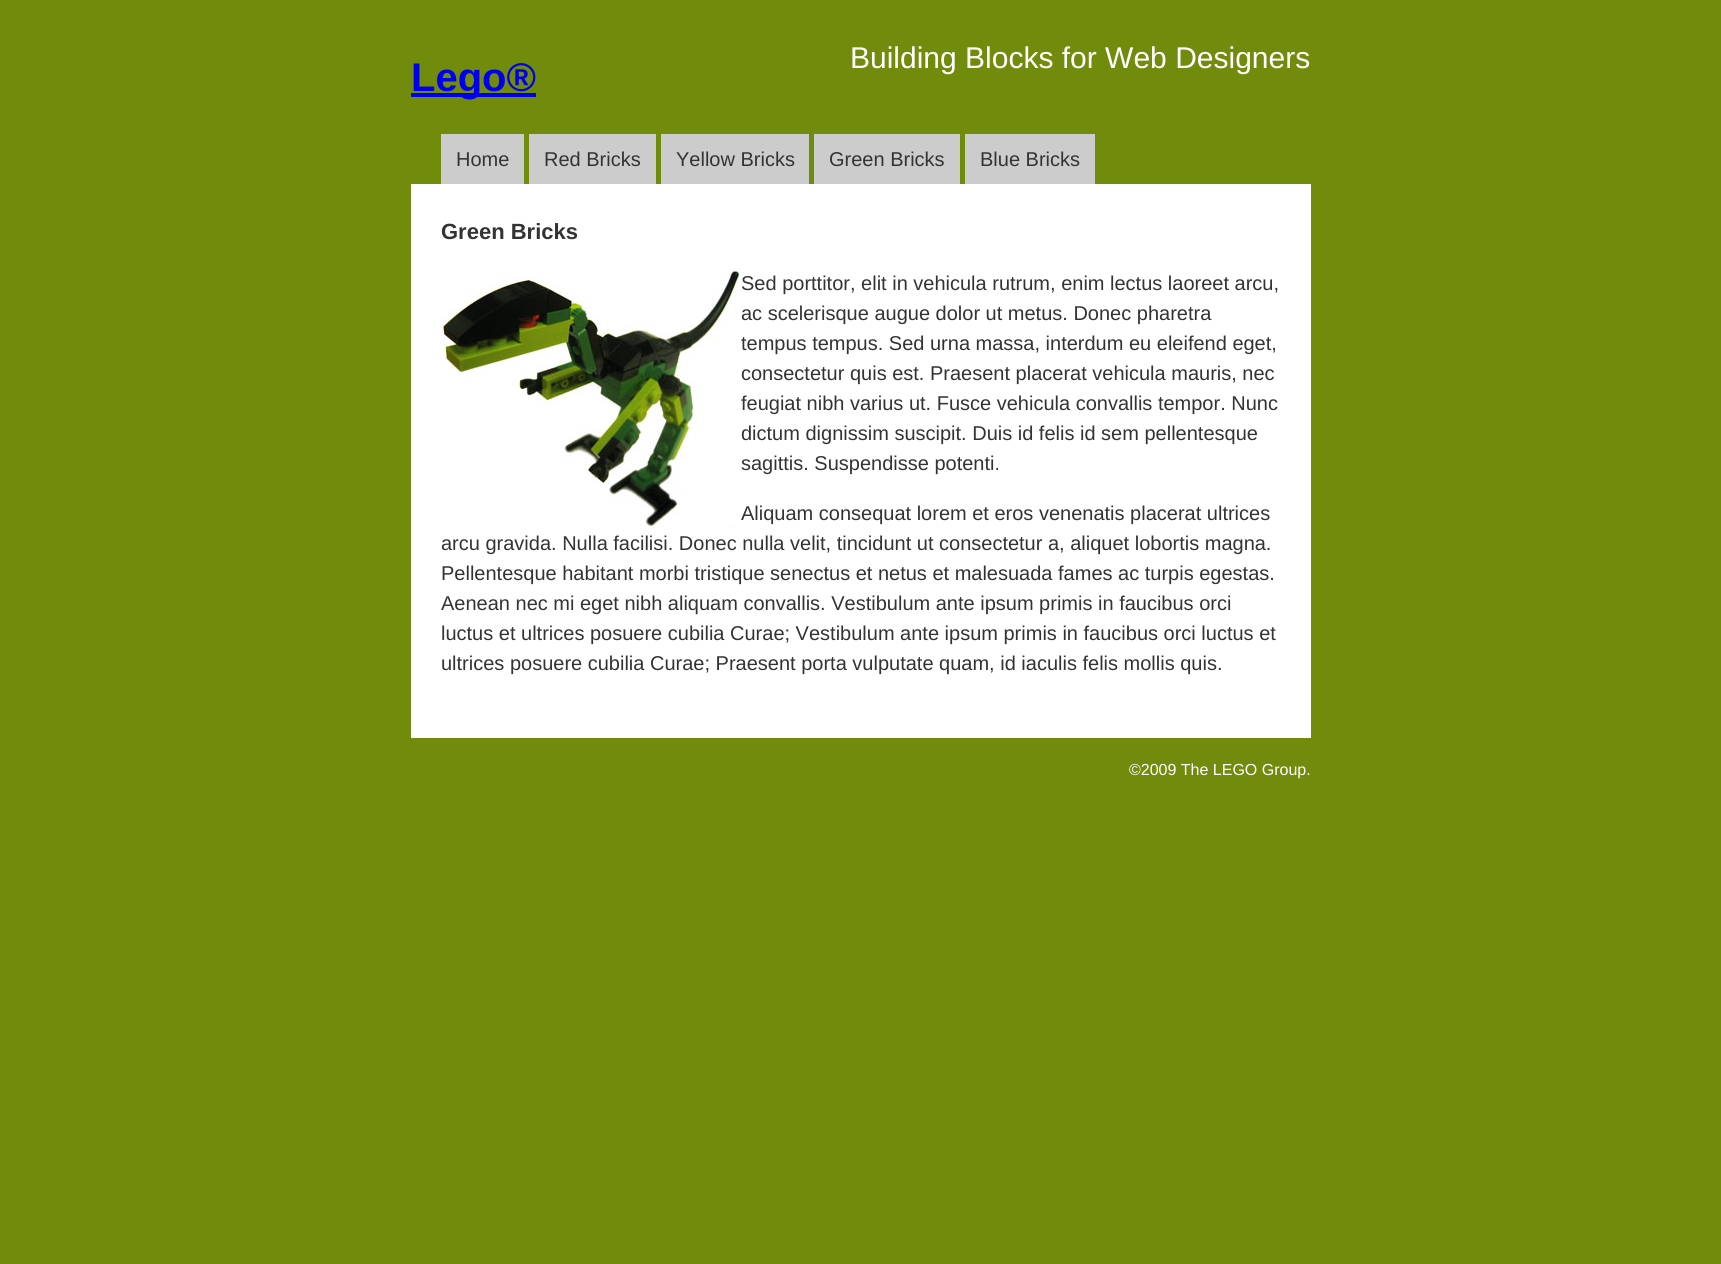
#include <cairo.h>
#include <math.h>
#include <stddef.h>

typedef struct { const char *family; double size; int italic, bold; unsigned color; } style_t;
static cairo_t *ctx;

static void ink(unsigned color) {
    cairo_set_source_rgb(ctx, (color >> 16) / 255.0, (color >> 8 & 255) / 255.0, (color & 255) / 255.0);
}

static void write(double x, double y, const char *s, const style_t *st) {
    cairo_select_font_face(ctx, st->family, st->italic ? CAIRO_FONT_SLANT_ITALIC : CAIRO_FONT_SLANT_NORMAL,
        st->bold ? CAIRO_FONT_WEIGHT_BOLD : CAIRO_FONT_WEIGHT_NORMAL);
    cairo_set_font_size(ctx, st->size);
    ink(st->color);
    cairo_move_to(ctx, x, y);
    cairo_show_text(ctx, s);
}

static void block(double x, double y, double w, double h, unsigned color) {
    ink(color);
    cairo_rectangle(ctx, x, y, w, h);
    cairo_fill(ctx);
}

static void paste(const char *path, double x, double y, double w, double h) {
    cairo_surface_t *image = cairo_image_surface_create_from_png(path);
    cairo_save(ctx);
    cairo_set_source_surface(ctx, image, x, y);
    cairo_rectangle(ctx, x, y, w, h);
    cairo_fill(ctx);
    cairo_restore(ctx);
    cairo_surface_destroy(image);
}

static const style_t s1 = {"Liberation Sans", 40, 0, 1, 0x0000ee};
static const style_t s2 = {"Liberation Sans", 30, 0, 0, 0xffffff};
static const style_t s3 = {"Liberation Sans", 20, 0, 0, 0x333333};
static const style_t s4 = {"Liberation Sans", 22, 0, 1, 0x333333};
static const style_t s5 = {"Liberation Sans", 16, 0, 0, 0xffffff};

int main(void) {
    cairo_surface_t *surface = cairo_image_surface_create(CAIRO_FORMAT_RGB24, 1721, 1264);
    ctx = cairo_create(surface);
    cairo_font_options_t *options = cairo_font_options_create();
    cairo_font_options_set_hint_metrics(options, CAIRO_HINT_METRICS_OFF);
    cairo_font_options_set_hint_style(options, CAIRO_HINT_STYLE_NONE);
    cairo_set_font_options(ctx, options);
    cairo_set_miter_limit(ctx, 4);
    ink(0x718b0c);
    cairo_paint(ctx);
    block(411, 93, 125, 4, 0x0000ee);
    write(411, 91, "Lego®", &s1);
    write(850, 68, "Building Blocks for Web Designers", &s2);
    block(441, 134, 83, 50, 0xcccccc);
    write(456, 166, "Home", &s3);
    block(529, 134, 127, 50, 0xcccccc);
    write(544, 166, "Red Bricks", &s3);
    block(661, 134, 148, 50, 0xcccccc);
    write(676, 166, "Yellow Bricks", &s3);
    block(814, 134, 146, 50, 0xcccccc);
    write(829, 166, "Green Bricks", &s3);
    block(965, 134, 130, 50, 0xcccccc);
    write(980, 166, "Blue Bricks", &s3);
    block(411, 184, 900, 554, 0xffffff);
    write(441, 239, "Green Bricks", &s4);
    write(741, 350, "tempus tempus. Sed urna massa, interdum eu eleifend eget,", &s3);
    write(741, 410, "feugiat nibh varius ut. Fusce vehicula convallis tempor. Nunc", &s3);
    write(741, 520, "Aliquam consequat lorem et eros venenatis placerat ultrices", &s3);
    paste("pic1.png", 441, 268, 300, 259);
    write(741, 290, "Sed porttitor, elit in vehicula rutrum, enim lectus laoreet arcu,", &s3);
    write(741, 320, "ac scelerisque augue dolor ut metus. Donec pharetra", &s3);
    write(741, 380, "consectetur quis est. Praesent placerat vehicula mauris, nec", &s3);
    write(741, 440, "dictum dignissim suscipit. Duis id felis id sem pellentesque", &s3);
    write(741, 470, "sagittis. Suspendisse potenti.", &s3);
    write(441, 550, "arcu gravida. Nulla facilisi. Donec nulla velit, tincidunt ut consectetur a, aliquet lobortis magna.", &s3);
    write(441, 580, "Pellentesque habitant morbi tristique senectus et netus et malesuada fames ac turpis egestas.", &s3);
    write(441, 610, "Aenean nec mi eget nibh aliquam convallis. Vestibulum ante ipsum primis in faucibus orci", &s3);
    write(441, 640, "luctus et ultrices posuere cubilia Curae; Vestibulum ante ipsum primis in faucibus orci luctus et", &s3);
    write(441, 670, "ultrices posuere cubilia Curae; Praesent porta vulputate quam, id iaculis felis mollis quis.", &s3);
    write(1129, 775, "©2009 The LEGO Group.", &s5);
    cairo_surface_write_to_png(surface, "screenshot.png");
    cairo_font_options_destroy(options);
    cairo_destroy(ctx);
    cairo_surface_destroy(surface);
    return 0;
}
